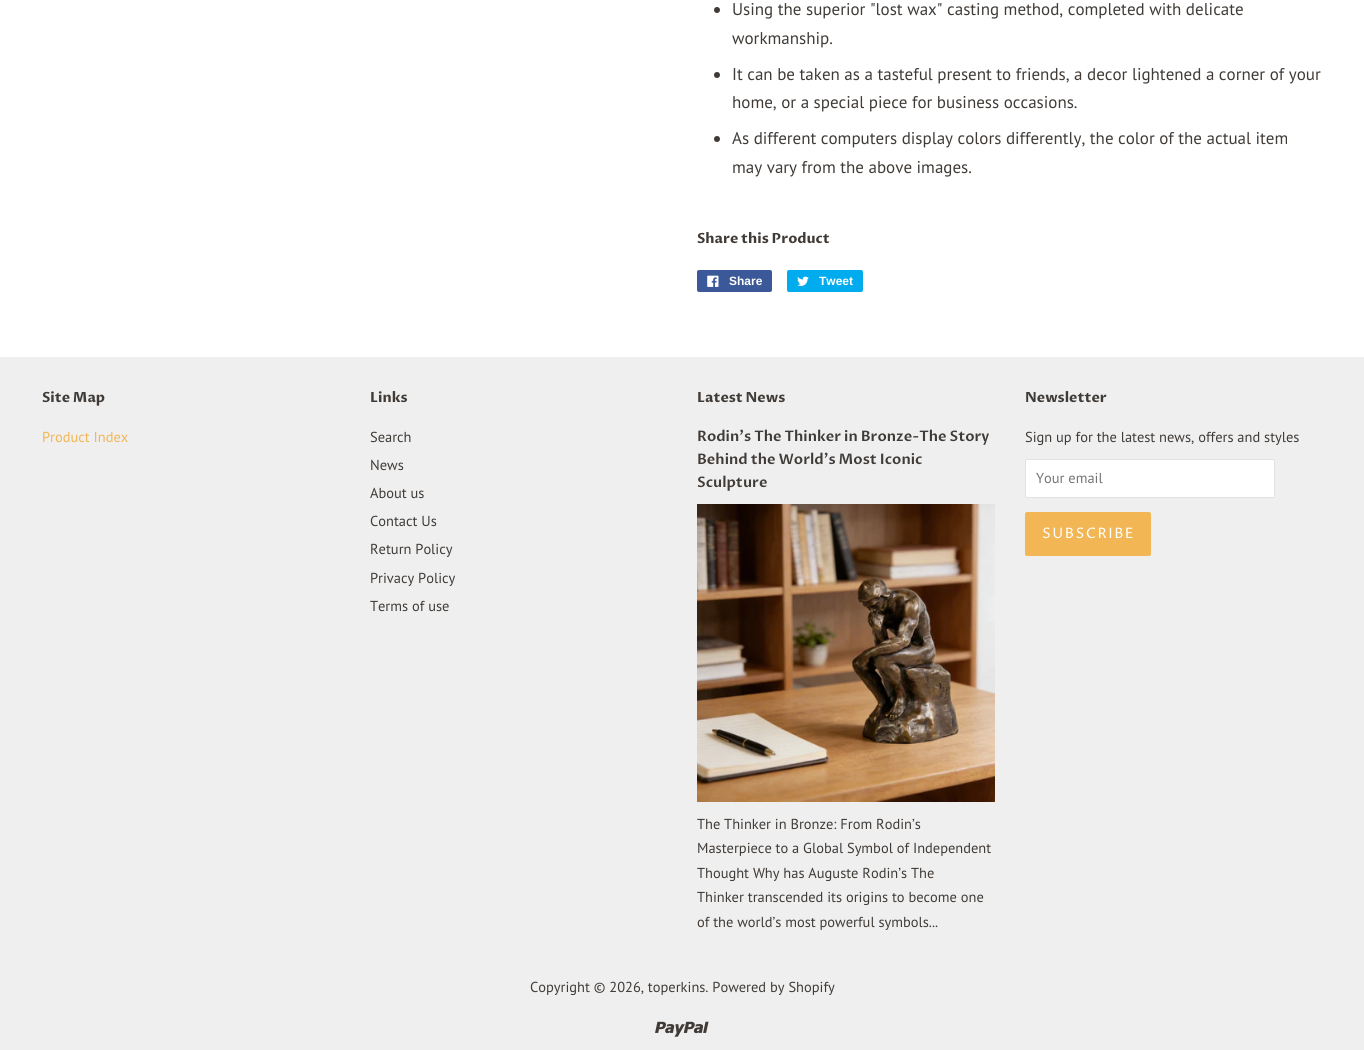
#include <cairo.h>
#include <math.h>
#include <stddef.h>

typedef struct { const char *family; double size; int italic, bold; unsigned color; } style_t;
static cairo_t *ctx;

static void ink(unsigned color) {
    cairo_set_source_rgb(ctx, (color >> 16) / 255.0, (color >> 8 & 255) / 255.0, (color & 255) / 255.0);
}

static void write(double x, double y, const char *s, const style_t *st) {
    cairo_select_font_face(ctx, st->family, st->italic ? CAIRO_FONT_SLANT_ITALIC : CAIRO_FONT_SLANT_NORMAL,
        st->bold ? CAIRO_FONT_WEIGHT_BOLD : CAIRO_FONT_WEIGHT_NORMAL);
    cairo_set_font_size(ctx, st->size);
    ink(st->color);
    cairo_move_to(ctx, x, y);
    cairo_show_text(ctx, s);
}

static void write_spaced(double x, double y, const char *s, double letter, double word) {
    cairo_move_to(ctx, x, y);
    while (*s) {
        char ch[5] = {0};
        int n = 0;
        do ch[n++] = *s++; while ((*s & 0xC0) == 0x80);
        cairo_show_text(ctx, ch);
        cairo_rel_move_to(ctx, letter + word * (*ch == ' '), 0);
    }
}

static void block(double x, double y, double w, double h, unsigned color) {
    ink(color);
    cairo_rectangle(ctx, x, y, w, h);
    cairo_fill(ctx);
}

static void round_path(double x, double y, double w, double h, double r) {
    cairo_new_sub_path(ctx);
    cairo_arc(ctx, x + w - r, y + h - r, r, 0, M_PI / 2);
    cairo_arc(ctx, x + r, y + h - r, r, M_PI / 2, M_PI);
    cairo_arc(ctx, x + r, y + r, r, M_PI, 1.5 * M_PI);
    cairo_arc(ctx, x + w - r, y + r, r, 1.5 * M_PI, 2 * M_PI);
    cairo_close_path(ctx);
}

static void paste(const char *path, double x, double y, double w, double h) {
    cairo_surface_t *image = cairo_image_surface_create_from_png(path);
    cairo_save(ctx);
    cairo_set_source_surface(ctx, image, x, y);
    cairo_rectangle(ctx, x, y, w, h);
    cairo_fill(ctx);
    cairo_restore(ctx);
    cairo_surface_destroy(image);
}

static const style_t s1 = {"PT Sans", 17, 0, 0, 0x403b37};
static const style_t s2 = {"Proza Libre", 14, 0, 1, 0x403b37};
static const style_t s3 = {"Liberation Sans", 12, 0, 1, 0xffffff};
static const style_t s4 = {"PT Sans", 14.45, 0, 0, 0xf2b654};
static const style_t s5 = {"PT Sans", 14.45, 0, 0, 0x403b37};
static const style_t s6 = {"Proza Libre SemiBold", 14.45, 0, 0, 0x403b37};
static const style_t s7 = {"PT Sans", 14.45, 0, 0, 0x757575};

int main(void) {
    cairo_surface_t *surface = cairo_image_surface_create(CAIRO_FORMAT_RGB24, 1364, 1050);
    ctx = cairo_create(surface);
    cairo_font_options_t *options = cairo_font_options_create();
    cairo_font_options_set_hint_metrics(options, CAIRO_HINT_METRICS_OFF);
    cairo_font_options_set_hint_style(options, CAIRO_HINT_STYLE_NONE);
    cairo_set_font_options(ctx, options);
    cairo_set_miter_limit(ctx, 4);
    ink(0xffffff);
    cairo_paint(ctx);
    ink(0x403b37);
    cairo_arc(ctx, 717, 10, 3, 0, 2 * M_PI);
    cairo_fill(ctx);
    write(732, 15, "Using the superior \"lost wax\" casting method, completed with delicate", &s1);
    write(732, 44, "workmanship.", &s1);
    cairo_new_path(ctx);
    cairo_arc(ctx, 717, 75, 3, 0, 2 * M_PI);
    cairo_fill(ctx);
    write(732, 80, "It can be taken as a tasteful present to friends, a decor lightened a corner of your", &s1);
    write(732, 108, "home, or a special piece for business occasions.", &s1);
    cairo_new_path(ctx);
    cairo_arc(ctx, 717, 139, 3, 0, 2 * M_PI);
    cairo_fill(ctx);
    write(732, 144, "As different computers display colors differently, the color of the actual item", &s1);
    write(732, 173, "may vary from the above images.", &s1);
    write(697, 243, "Share this Product", &s2);
    ink(0x3b5998);
    round_path(697, 270, 75, 22, 2);
    cairo_fill(ctx);
    paste("pic1.png", 707, 275, 12, 12);
    write(729, 285, "Share", &s3);
    ink(0x00aced);
    round_path(787, 270, 76, 22, 2);
    cairo_fill(ctx);
    paste("pic2.png", 797, 276, 12, 10);
    write(819, 285, "Tweet", &s3);
    block(0, 357, 1364, 693, 0xefefef);
    write(42, 402, "Site Map", &s2);
    write(42, 442, "Product Index", &s4);
    write(370, 402, "Links", &s2);
    write(370, 442, "Search", &s5);
    write(370, 470, "News", &s5);
    write(370, 498, "About us", &s5);
    write(370, 526, "Contact Us", &s5);
    write(370, 554, "Return Policy", &s5);
    write(370, 583, "Privacy Policy", &s5);
    write(370, 611, "Terms of use", &s5);
    write(697, 402, "Latest News", &s2);
    write(697, 441, "Rodin’s The Thinker in Bronze-The Story", &s6);
    write(697, 464, "Behind the World’s Most Iconic", &s6);
    write(697, 487, "Sculpture", &s6);
    paste("pic3.png", 697, 504, 298, 298);
    write(697, 829, "The Thinker in Bronze: From Rodin’s", &s5);
    write(697, 853, "Masterpiece to a Global Symbol of Independent", &s5);
    write(697, 878, "Thought Why has Auguste Rodin’s The", &s5);
    write(697, 902, "Thinker transcended its origins to become one", &s5);
    write(697, 927, "of the world’s most powerful symbols...", &s5);
    write(1025, 402, "Newsletter", &s2);
    write(1025, 442, "Sign up for the latest news, offers and styles", &s5);
    ink(0xffffff);
    round_path(1025.5, 459.5, 249, 38, 1.5);
    cairo_fill_preserve(ctx);
    ink(0xe2e2e1);
    cairo_set_line_width(ctx, 1);
    cairo_stroke(ctx);
    write(1036, 483, "Your email", &s7);
    ink(0xf2b654);
    round_path(1025, 512, 126, 44, 2);
    cairo_fill(ctx);
    cairo_select_font_face(ctx, "Proza Libre", CAIRO_FONT_SLANT_NORMAL, CAIRO_FONT_WEIGHT_NORMAL);
    ink(0xffffff);
    write_spaced(1042, 538, "SUBSCRIBE", 1.5, 0);
    write(530, 992, "Copyright © 2026, toperkins. Powered by Shopify", &s5);
    paste("pic4.png", 655, 1021, 54, 16);
    cairo_surface_write_to_png(surface, "screenshot.png");
    cairo_font_options_destroy(options);
    cairo_destroy(ctx);
    cairo_surface_destroy(surface);
    return 0;
}
